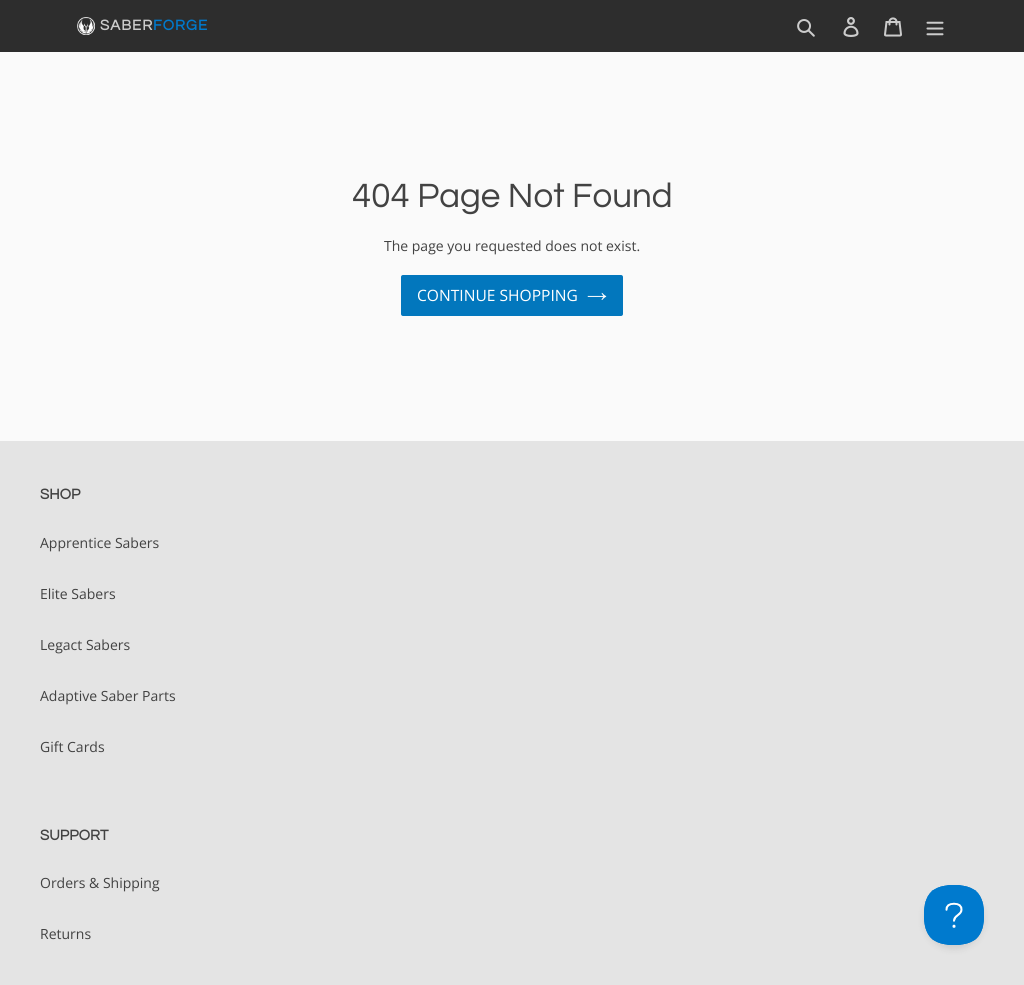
#include <cairo.h>
#include <math.h>
#include <stddef.h>

typedef struct { const char *family; double size; int italic, bold; unsigned color; } style_t;
static cairo_t *ctx;

static void ink(unsigned color) {
    cairo_set_source_rgb(ctx, (color >> 16) / 255.0, (color >> 8 & 255) / 255.0, (color & 255) / 255.0);
}

static void write(double x, double y, const char *s, const style_t *st) {
    cairo_select_font_face(ctx, st->family, st->italic ? CAIRO_FONT_SLANT_ITALIC : CAIRO_FONT_SLANT_NORMAL,
        st->bold ? CAIRO_FONT_WEIGHT_BOLD : CAIRO_FONT_WEIGHT_NORMAL);
    cairo_set_font_size(ctx, st->size);
    ink(st->color);
    cairo_move_to(ctx, x, y);
    cairo_show_text(ctx, s);
}

static void write_spaced(double x, double y, const char *s, double letter, double word) {
    cairo_move_to(ctx, x, y);
    while (*s) {
        char ch[5] = {0};
        int n = 0;
        do ch[n++] = *s++; while ((*s & 0xC0) == 0x80);
        cairo_show_text(ctx, ch);
        cairo_rel_move_to(ctx, letter + word * (*ch == ' '), 0);
    }
}

static void block(double x, double y, double w, double h, unsigned color) {
    ink(color);
    cairo_rectangle(ctx, x, y, w, h);
    cairo_fill(ctx);
}

static void round_path(double x, double y, double w, double h, double r) {
    cairo_new_sub_path(ctx);
    cairo_arc(ctx, x + w - r, y + h - r, r, 0, M_PI / 2);
    cairo_arc(ctx, x + r, y + h - r, r, M_PI / 2, M_PI);
    cairo_arc(ctx, x + r, y + r, r, M_PI, 1.5 * M_PI);
    cairo_arc(ctx, x + w - r, y + r, r, 1.5 * M_PI, 2 * M_PI);
    cairo_close_path(ctx);
}

static void blur_box(double x, double y, double w, double h, double r, double blur, double alpha) {
    cairo_push_group_with_content(ctx, CAIRO_CONTENT_ALPHA);
    cairo_set_operator(ctx, CAIRO_OPERATOR_SOURCE);
    for (int i = 15; i >= -15 && fmin(w, h) + blur * i / 3 > 0; i -= 2) {
        double e = blur * i / 6;
        cairo_set_source_rgba(ctx, 0, 0, 0, alpha * erfc((i - 1) / 8.5) / 2);
        round_path(x - e, y - e, w + 2 * e, h + 2 * e, fmax(0, fmin(r + e + blur * .6, fmin(w, h) / 2 + e)));
        cairo_fill(ctx);
    }
    cairo_pattern_t *soft = cairo_pop_group(ctx);
    cairo_mask(ctx, soft);
    cairo_pattern_destroy(soft);
}

static void paste(const char *path, double x, double y, double w, double h) {
    cairo_surface_t *image = cairo_image_surface_create_from_png(path);
    cairo_save(ctx);
    cairo_set_source_surface(ctx, image, x, y);
    cairo_rectangle(ctx, x, y, w, h);
    cairo_fill(ctx);
    cairo_restore(ctx);
    cairo_surface_destroy(image);
}

static const style_t s1 = {"Questrial", 35, 0, 0, 0x424242};
static const style_t s2 = {"Open Sans", 14, 0, 0, 0x424242};
static const style_t s3 = {"Open Sans", 15.6, 0, 0, 0xffffff};
static const style_t s4 = {"Questrial", 15, 0, 1, 0x424242};

int main(void) {
    cairo_surface_t *surface = cairo_image_surface_create(CAIRO_FORMAT_RGB24, 1024, 985);
    ctx = cairo_create(surface);
    cairo_font_options_t *options = cairo_font_options_create();
    cairo_font_options_set_hint_metrics(options, CAIRO_HINT_METRICS_OFF);
    cairo_font_options_set_hint_style(options, CAIRO_HINT_STYLE_NONE);
    cairo_set_font_options(ctx, options);
    cairo_set_miter_limit(ctx, 4);
    ink(0xfafafa);
    cairo_paint(ctx);
    block(0, 0, 1024, 52, 0x2d2d2d);
    paste("pic1.png", 77, 17, 18, 18);
    cairo_select_font_face(ctx, "Questrial", CAIRO_FONT_SLANT_NORMAL, CAIRO_FONT_WEIGHT_BOLD);
    cairo_set_font_size(ctx, 15);
    ink(0xcccccc);
    write_spaced(100, 30, "SABER", 1, 0);
    ink(0x007ace);
    write_spaced(153, 30, "FORGE", 1, 0);
    paste("pic2.png", 797, 19, 18, 18);
    paste("pic3.png", 843, 17, 16, 20);
    paste("pic4.png", 884, 17, 18, 20);
    paste("pic5.png", 926, 21, 18, 15);
    write(352, 207, "404 Page Not Found", &s1);
    write(384, 251, "The page you requested does not exist.", &s2);
    ink(0x0277bd);
    round_path(401, 275, 222, 41, 2);
    cairo_fill(ctx);
    write(417, 301, "CONTINUE SHOPPING", &s3);
    paste("pic6.png", 587, 292, 20, 8);
    block(0, 441, 1024, 544, 0xe4e4e4);
    write(40, 499, "SHOP", &s4);
    write(40, 548, "Apprentice Sabers", &s2);
    write(40, 599, "Elite Sabers", &s2);
    write(40, 650, "Legact Sabers", &s2);
    write(40, 701, "Adaptive Saber Parts", &s2);
    write(40, 752, "Gift Cards", &s2);
    write(40, 840, "SUPPORT", &s4);
    write(40, 888, "Orders & Shipping", &s2);
    write(40, 939, "Returns", &s2);
    ink(0x000000);
    blur_box(924, 889, 60, 60, 30, 3.5, 0.1);
    paste("pic7.png", 924, 885, 60, 60);
    cairo_surface_write_to_png(surface, "screenshot.png");
    cairo_font_options_destroy(options);
    cairo_destroy(ctx);
    cairo_surface_destroy(surface);
    return 0;
}
